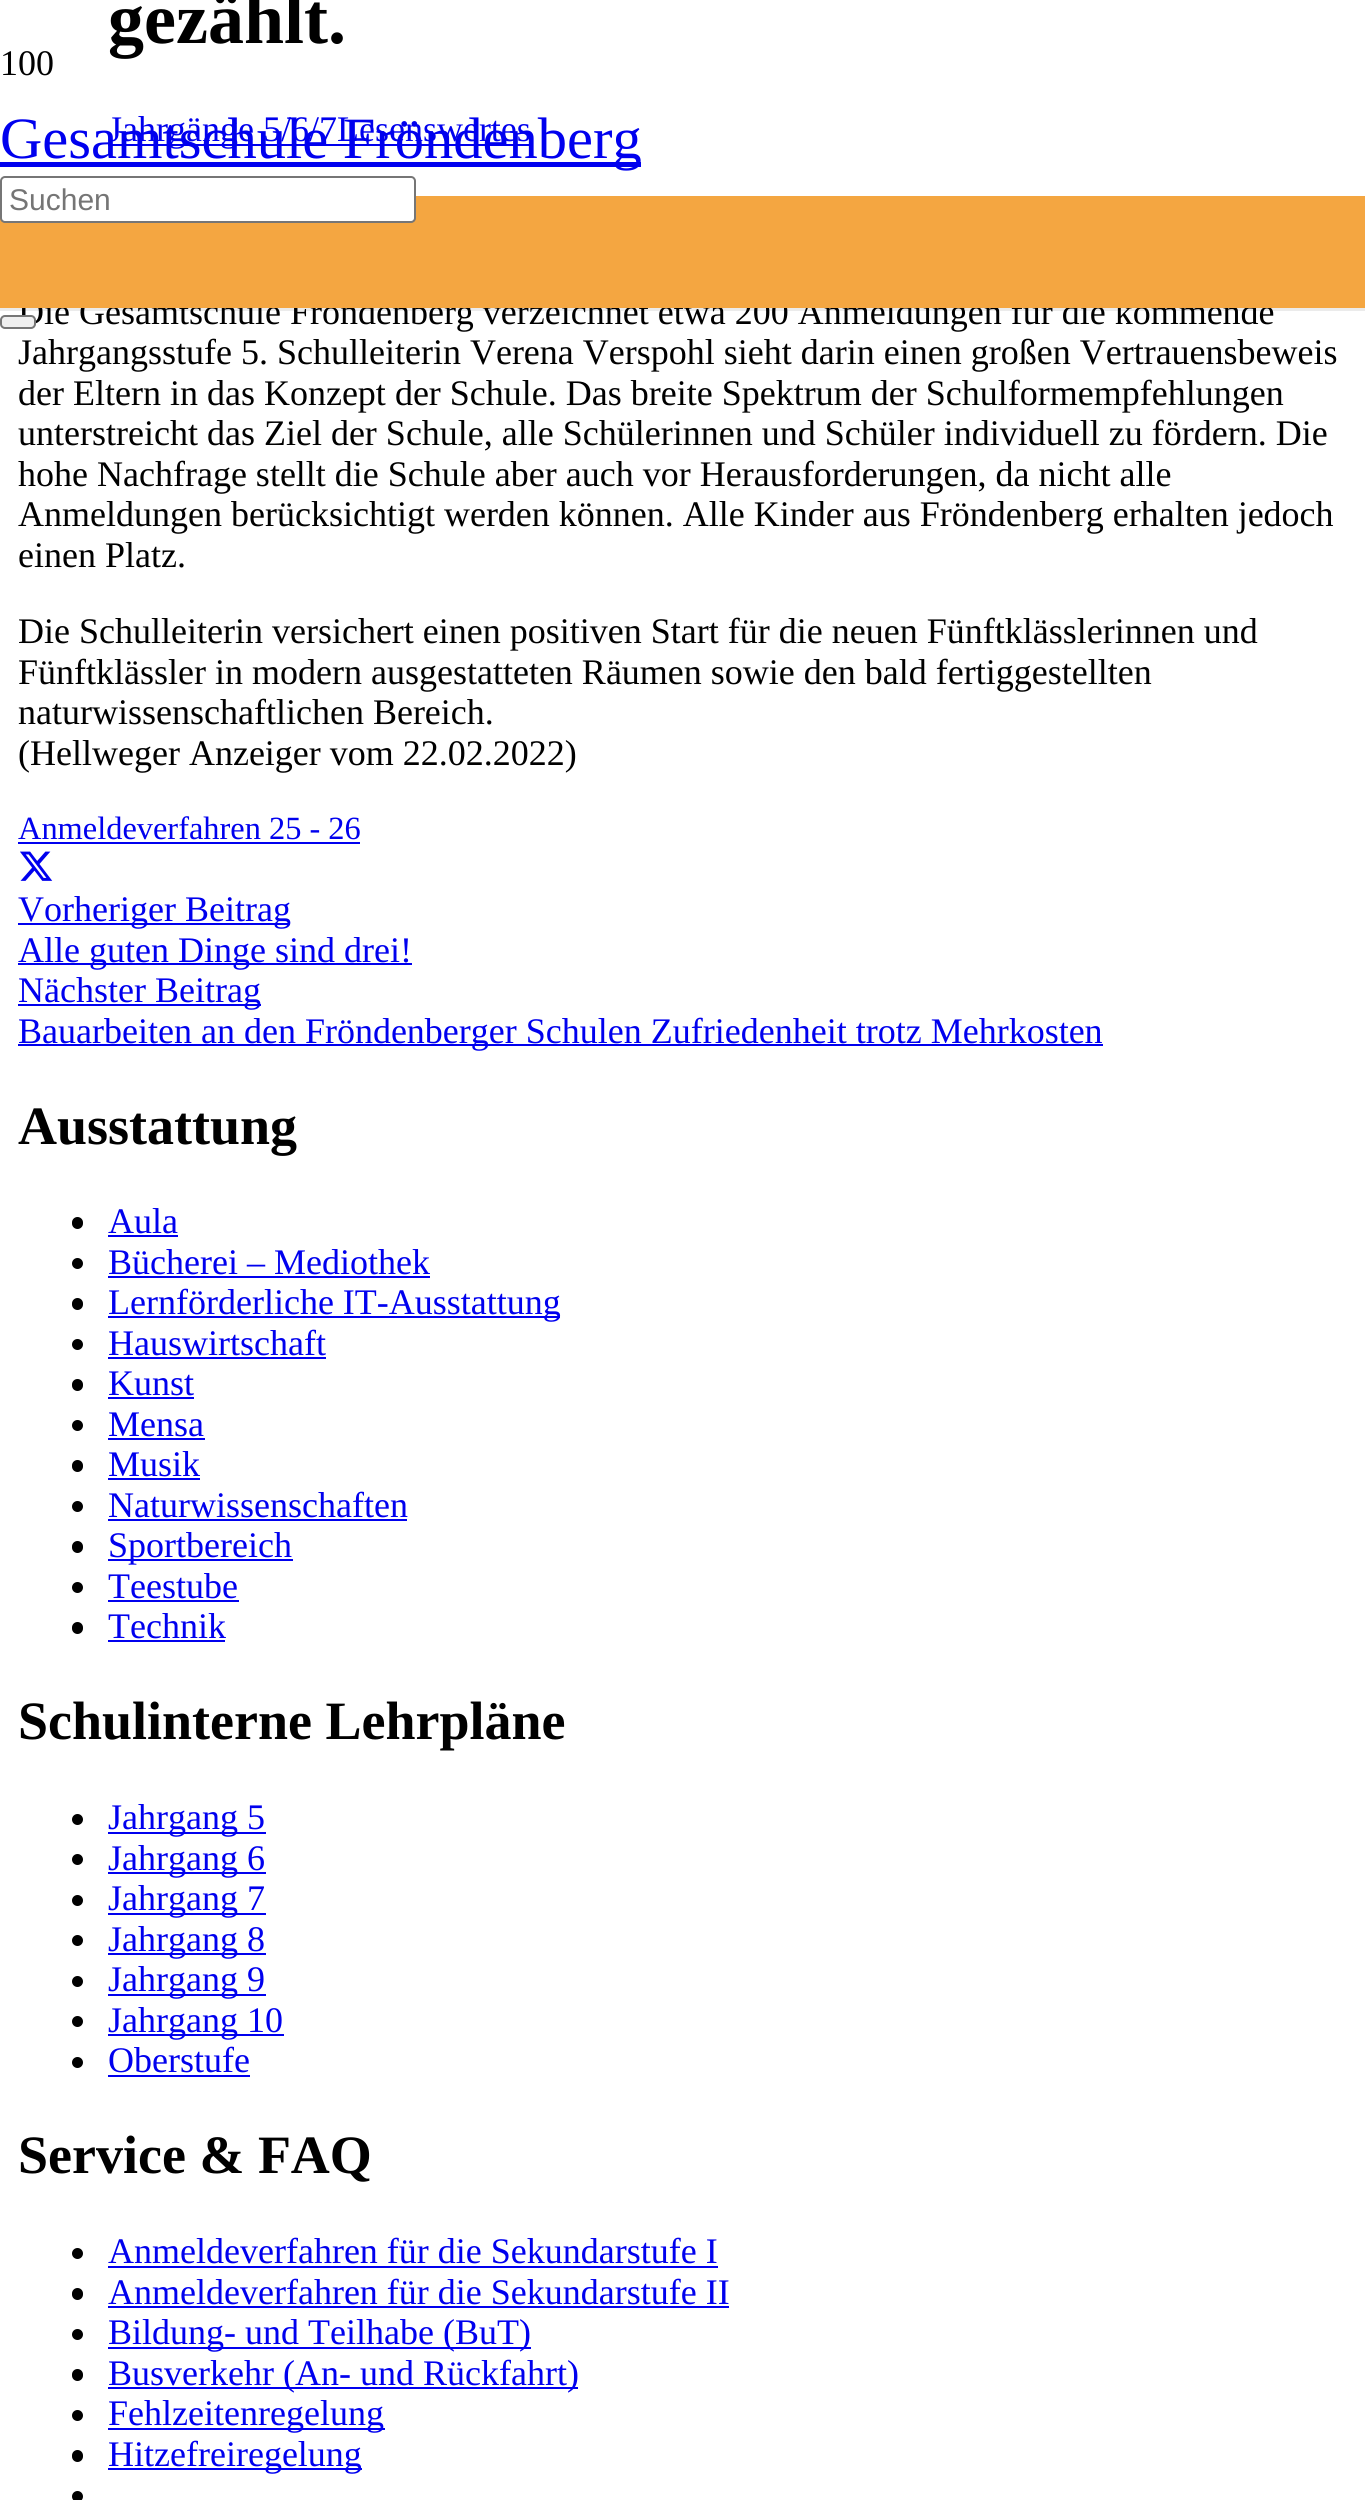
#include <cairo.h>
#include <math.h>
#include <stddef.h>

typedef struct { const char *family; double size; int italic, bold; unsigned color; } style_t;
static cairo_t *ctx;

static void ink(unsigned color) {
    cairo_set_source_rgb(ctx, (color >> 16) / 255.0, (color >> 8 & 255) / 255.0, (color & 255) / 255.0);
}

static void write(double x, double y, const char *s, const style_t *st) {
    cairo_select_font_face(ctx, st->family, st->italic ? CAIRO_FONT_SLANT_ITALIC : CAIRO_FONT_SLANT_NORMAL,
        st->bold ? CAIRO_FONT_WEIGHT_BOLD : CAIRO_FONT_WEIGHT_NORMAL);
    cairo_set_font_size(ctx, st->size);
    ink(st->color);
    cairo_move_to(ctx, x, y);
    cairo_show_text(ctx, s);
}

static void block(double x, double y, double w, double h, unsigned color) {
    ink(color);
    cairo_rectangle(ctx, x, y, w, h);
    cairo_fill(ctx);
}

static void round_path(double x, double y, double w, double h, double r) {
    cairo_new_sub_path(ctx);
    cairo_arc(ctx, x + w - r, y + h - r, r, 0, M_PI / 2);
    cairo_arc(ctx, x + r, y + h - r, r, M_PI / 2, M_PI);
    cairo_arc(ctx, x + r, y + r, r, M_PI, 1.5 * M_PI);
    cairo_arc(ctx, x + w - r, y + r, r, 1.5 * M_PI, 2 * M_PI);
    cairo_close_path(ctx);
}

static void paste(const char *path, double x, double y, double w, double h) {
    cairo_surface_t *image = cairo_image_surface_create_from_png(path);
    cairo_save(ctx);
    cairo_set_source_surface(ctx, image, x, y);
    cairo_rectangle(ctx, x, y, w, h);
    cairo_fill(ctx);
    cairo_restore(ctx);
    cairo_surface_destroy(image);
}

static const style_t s1 = {"Liberation Serif", 72, 0, 1, 0x000000};
static const style_t s2 = {"Liberation Serif", 36, 0, 0, 0x0000ee};
static const style_t s3 = {"Liberation Serif", 36, 0, 0, 0x000000};
static const style_t s4 = {"Liberation Serif", 32.4, 0, 0, 0x0000ee};
static const style_t s5 = {"Liberation Serif", 58.5, 0, 0, 0x0000ee};
static const style_t s6 = {"Liberation Sans", 30, 0, 0, 0x757575};
static const style_t s7 = {"Liberation Serif", 54, 0, 1, 0x000000};

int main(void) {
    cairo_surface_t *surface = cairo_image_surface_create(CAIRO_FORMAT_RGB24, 1365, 2500);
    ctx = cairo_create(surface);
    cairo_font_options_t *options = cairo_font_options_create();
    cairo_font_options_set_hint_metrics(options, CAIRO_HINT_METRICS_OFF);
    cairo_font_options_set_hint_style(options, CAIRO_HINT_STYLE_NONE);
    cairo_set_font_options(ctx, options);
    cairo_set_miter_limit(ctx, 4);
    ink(0xffffff);
    cairo_paint(ctx);
    write(108, 43, "gezählt.", &s1);
    block(108, 144, 423, 2, 0x0000ee);
    write(108, 141, "Jahrgänge 5/6/7Lesenswertes", &s2);
    write(18, 324, "Die Gesamtschule Fröndenberg verzeichnet etwa 200 Anmeldungen für die kommende", &s3);
    write(18, 364, "Jahrgangsstufe 5. Schulleiterin Verena Verspohl sieht darin einen großen Vertrauensbeweis", &s3);
    write(18, 405, "der Eltern in das Konzept der Schule. Das breite Spektrum der Schulformempfehlungen", &s3);
    write(18, 445, "unterstreicht das Ziel der Schule, alle Schülerinnen und Schüler individuell zu fördern. Die", &s3);
    write(18, 486, "hohe Nachfrage stellt die Schule aber auch vor Herausforderungen, da nicht alle", &s3);
    write(18, 526, "Anmeldungen berücksichtigt werden können. Alle Kinder aus Fröndenberg erhalten jedoch", &s3);
    write(18, 567, "einen Platz.", &s3);
    write(18, 643, "Die Schulleiterin versichert einen positiven Start für die neuen Fünftklässlerinnen und", &s3);
    write(18, 684, "Fünftklässler in modern ausgestatteten Räumen sowie den bald fertiggestellten", &s3);
    write(18, 724, "naturwissenschaftlichen Bereich.", &s3);
    write(18, 765, "(Hellweger Anzeiger vom 22.02.2022)", &s3);
    write(18, 839, "Anmeldeverfahren 25 - 26", &s4);
    block(18, 842, 342, 2, 0x0000ee);
    paste("pic1.png", 20, 851, 33, 30);
    block(18, 923, 272, 2, 0x0000ee);
    write(18, 921, "Vorheriger Beitrag", &s2);
    block(18, 963, 394, 2, 0x0000ee);
    write(18, 962, "Alle guten Dinge sind drei!", &s2);
    block(18, 1004, 243, 2, 0x0000ee);
    write(18, 1002, "Nächster Beitrag", &s2);
    block(18, 1044, 1085, 2, 0x0000ee);
    write(18, 1043, "Bauarbeiten an den Fröndenberger Schulen Zufriedenheit trotz Mehrkosten", &s2);
    write(0, 75, "100", &s3);
    block(0, 162, 641, 5, 0x0000ee);
    write(0, 158, "Gesamtschule Fröndenberg", &s5);
    cairo_set_source_rgba(ctx, 0, 0, 0, 0.08);
    cairo_new_path(ctx);
    cairo_move_to(ctx, 0, 308);
    cairo_line_to(ctx, 0, 311);
    cairo_line_to(ctx, 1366, 311);
    cairo_line_to(ctx, 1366, 198);
    cairo_line_to(ctx, 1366, 308);
    cairo_close_path(ctx);
    cairo_fill(ctx);
    block(0, 196, 1365, 112, 0xf4a641);
    ink(0xffffff);
    round_path(1, 177, 414, 45, 4);
    cairo_fill_preserve(ctx);
    ink(0x767676);
    cairo_stroke(ctx);
    write(9, 210, "Suchen", &s6);
    ink(0xefefef);
    round_path(1, 316, 34, 12, 4);
    cairo_fill_preserve(ctx);
    ink(0x767676);
    cairo_stroke(ctx);
    write(18, 1144, "Ausstattung", &s7);
    round_path(72, 1217, 11, 12, 5.5);
    cairo_fill(ctx);
    write(108, 1233, "Aula", &s2);
    block(108, 1235, 70, 2, 0x0000ee);
    ink(0x000000);
    cairo_new_path(ctx);
    cairo_arc(ctx, 77.5, 1263.5, 5.5, 0, 2 * M_PI);
    cairo_fill(ctx);
    write(108, 1274, "Bücherei – Mediothek", &s2);
    block(108, 1276, 322, 2, 0x0000ee);
    ink(0x000000);
    round_path(72, 1298, 11, 12, 5.5);
    cairo_fill(ctx);
    block(108, 1316, 452, 2, 0x0000ee);
    write(108, 1314, "Lernförderliche IT-Ausstattung", &s2);
    ink(0x000000);
    cairo_new_path(ctx);
    cairo_arc(ctx, 77.5, 1344.5, 5.5, 0, 2 * M_PI);
    cairo_fill(ctx);
    write(108, 1355, "Hauswirtschaft", &s2);
    block(108, 1357, 218, 2, 0x0000ee);
    ink(0x000000);
    round_path(72, 1379, 11, 12, 5.5);
    cairo_fill(ctx);
    write(108, 1395, "Kunst", &s2);
    block(108, 1397, 86, 2, 0x0000ee);
    ink(0x000000);
    cairo_new_path(ctx);
    cairo_arc(ctx, 77.5, 1425.5, 5.5, 0, 2 * M_PI);
    cairo_fill(ctx);
    write(108, 1436, "Mensa", &s2);
    block(108, 1438, 97, 2, 0x0000ee);
    ink(0x000000);
    round_path(72, 1460, 11, 12, 5.5);
    cairo_fill(ctx);
    write(108, 1476, "Musik", &s2);
    block(108, 1478, 92, 2, 0x0000ee);
    ink(0x000000);
    cairo_new_path(ctx);
    cairo_arc(ctx, 77.5, 1506.5, 5.5, 0, 2 * M_PI);
    cairo_fill(ctx);
    write(108, 1517, "Naturwissenschaften", &s2);
    block(108, 1519, 299, 2, 0x0000ee);
    ink(0x000000);
    round_path(72, 1541, 11, 12, 5.5);
    cairo_fill(ctx);
    block(108, 1559, 185, 2, 0x0000ee);
    write(108, 1557, "Sportbereich", &s2);
    ink(0x000000);
    cairo_new_path(ctx);
    cairo_arc(ctx, 77.5, 1587.5, 5.5, 0, 2 * M_PI);
    cairo_fill(ctx);
    write(108, 1598, "Teestube", &s2);
    block(108, 1600, 131, 2, 0x0000ee);
    ink(0x000000);
    round_path(72, 1622, 11, 12, 5.5);
    cairo_fill(ctx);
    write(108, 1638, "Technik", &s2);
    block(108, 1640, 117, 2, 0x0000ee);
    write(18, 1739, "Schulinterne Lehrpläne", &s7);
    cairo_new_path(ctx);
    cairo_arc(ctx, 77.5, 1819.5, 5.5, 0, 2 * M_PI);
    cairo_fill(ctx);
    block(108, 1832, 158, 2, 0x0000ee);
    write(108, 1829, "Jahrgang 5", &s2);
    ink(0x000000);
    cairo_new_path(ctx);
    cairo_arc(ctx, 77.5, 1859.5, 5.5, 0, 2 * M_PI);
    cairo_fill(ctx);
    block(108, 1872, 158, 2, 0x0000ee);
    write(108, 1870, "Jahrgang 6", &s2);
    ink(0x000000);
    cairo_new_path(ctx);
    cairo_arc(ctx, 77.5, 1900.5, 5.5, 0, 2 * M_PI);
    cairo_fill(ctx);
    block(108, 1913, 158, 2, 0x0000ee);
    write(108, 1910, "Jahrgang 7", &s2);
    ink(0x000000);
    cairo_new_path(ctx);
    cairo_arc(ctx, 77.5, 1940.5, 5.5, 0, 2 * M_PI);
    cairo_fill(ctx);
    block(108, 1953, 158, 2, 0x0000ee);
    write(108, 1951, "Jahrgang 8", &s2);
    ink(0x000000);
    cairo_new_path(ctx);
    cairo_arc(ctx, 77.5, 1981.5, 5.5, 0, 2 * M_PI);
    cairo_fill(ctx);
    block(108, 1994, 158, 2, 0x0000ee);
    write(108, 1991, "Jahrgang 9", &s2);
    ink(0x000000);
    cairo_new_path(ctx);
    cairo_arc(ctx, 77.5, 2021.5, 5.5, 0, 2 * M_PI);
    cairo_fill(ctx);
    block(108, 2034, 176, 2, 0x0000ee);
    write(108, 2032, "Jahrgang 10", &s2);
    ink(0x000000);
    cairo_new_path(ctx);
    cairo_arc(ctx, 77.5, 2062.5, 5.5, 0, 2 * M_PI);
    cairo_fill(ctx);
    write(108, 2072, "Oberstufe", &s2);
    block(108, 2075, 142, 2, 0x0000ee);
    write(18, 2173, "Service & FAQ", &s7);
    cairo_new_path(ctx);
    cairo_arc(ctx, 77.5, 2253.5, 5.5, 0, 2 * M_PI);
    cairo_fill(ctx);
    write(108, 2263, "Anmeldeverfahren für die Sekundarstufe I", &s2);
    block(108, 2266, 610, 2, 0x0000ee);
    ink(0x000000);
    round_path(72, 2288, 11, 12, 5.5);
    cairo_fill(ctx);
    write(108, 2304, "Anmeldeverfahren für die Sekundarstufe II", &s2);
    block(108, 2306, 621, 2, 0x0000ee);
    ink(0x000000);
    cairo_new_path(ctx);
    cairo_arc(ctx, 77.5, 2334.5, 5.5, 0, 2 * M_PI);
    cairo_fill(ctx);
    block(108, 2347, 423, 2, 0x0000ee);
    write(108, 2344, "Bildung- und Teilhabe (BuT)", &s2);
    ink(0x000000);
    round_path(72, 2369, 11, 12, 5.5);
    cairo_fill(ctx);
    block(108, 2387, 470, 2, 0x0000ee);
    write(108, 2385, "Busverkehr (An- und Rückfahrt)", &s2);
    ink(0x000000);
    cairo_new_path(ctx);
    cairo_arc(ctx, 77.5, 2415.5, 5.5, 0, 2 * M_PI);
    cairo_fill(ctx);
    block(108, 2428, 277, 2, 0x0000ee);
    write(108, 2425, "Fehlzeitenregelung", &s2);
    ink(0x000000);
    round_path(72, 2450, 11, 12, 5.5);
    cairo_fill(ctx);
    block(108, 2468, 254, 2, 0x0000ee);
    write(108, 2466, "Hitzefreiregelung", &s2);
    ink(0x000000);
    cairo_new_path(ctx);
    cairo_arc(ctx, 77.5, 2496.5, 5.5, 0, 2 * M_PI);
    cairo_fill(ctx);
    cairo_surface_write_to_png(surface, "screenshot.png");
    cairo_font_options_destroy(options);
    cairo_destroy(ctx);
    cairo_surface_destroy(surface);
    return 0;
}
